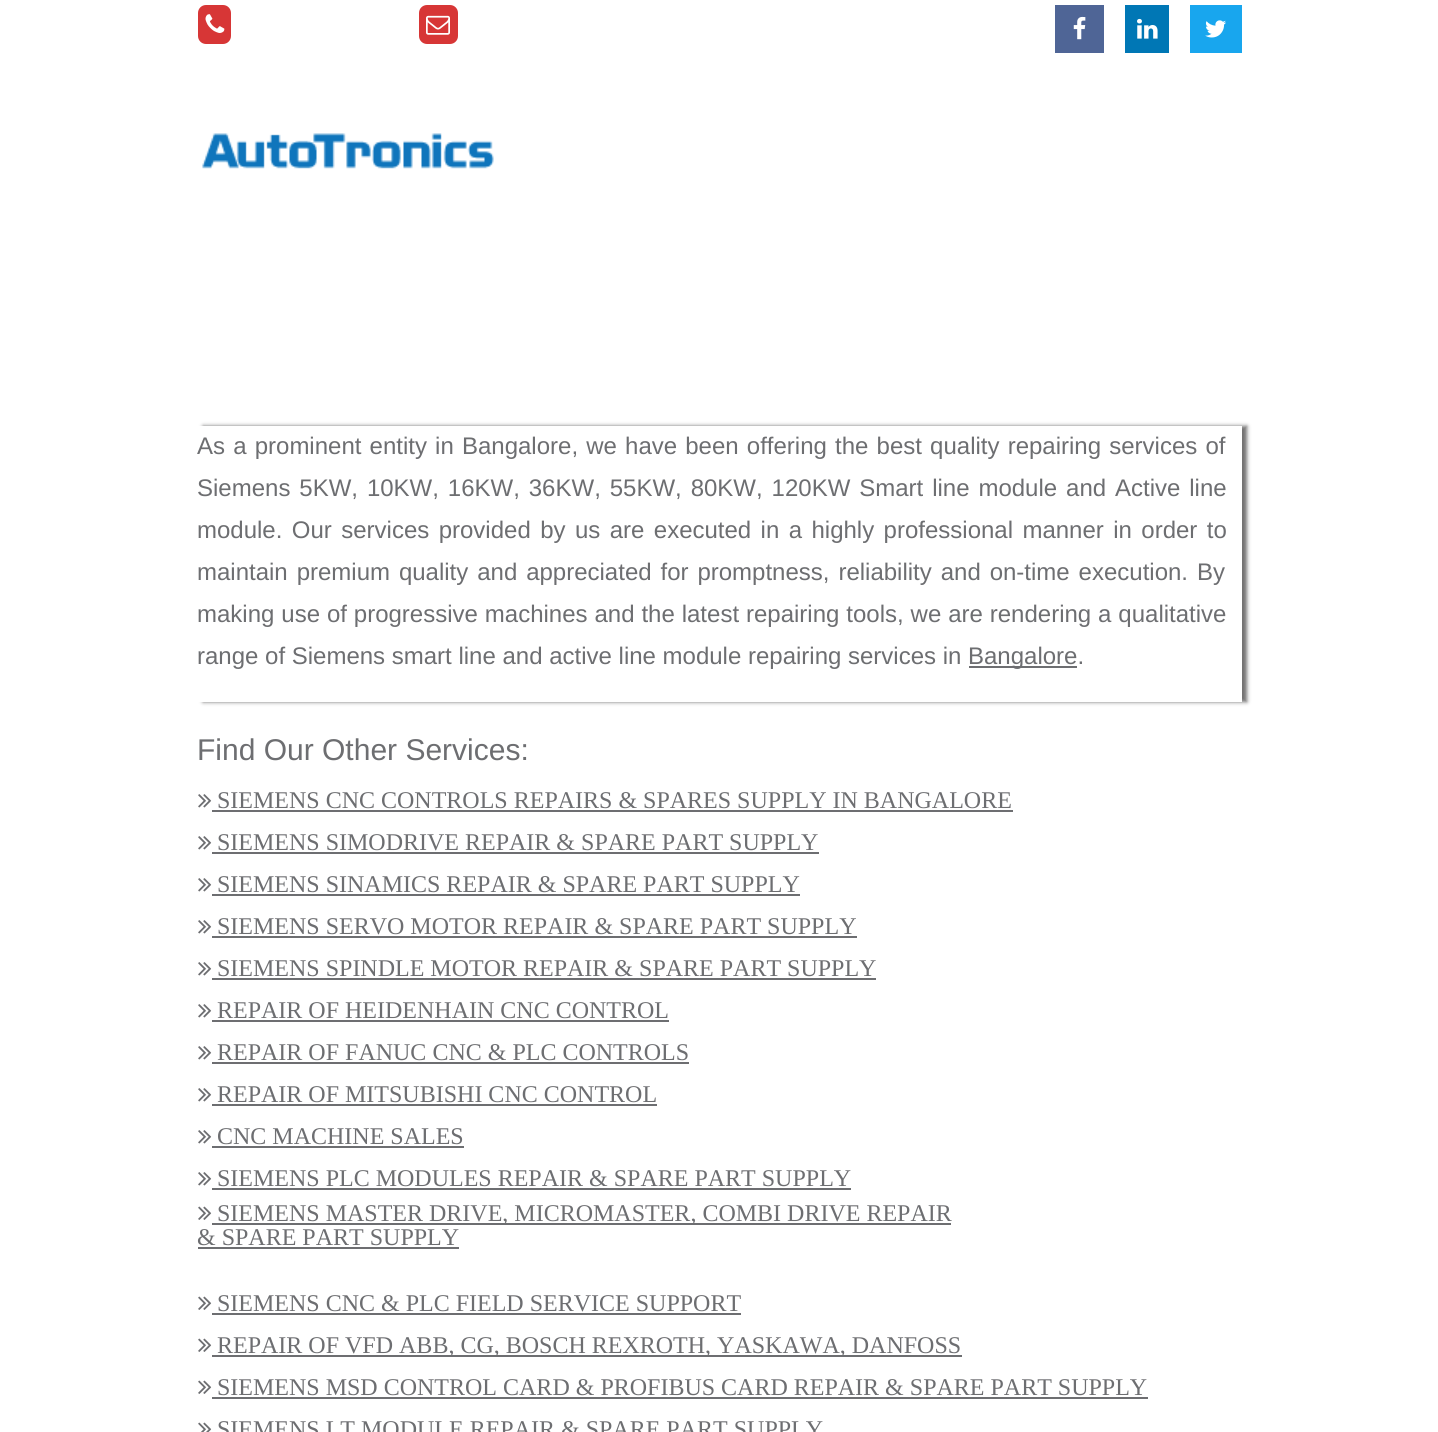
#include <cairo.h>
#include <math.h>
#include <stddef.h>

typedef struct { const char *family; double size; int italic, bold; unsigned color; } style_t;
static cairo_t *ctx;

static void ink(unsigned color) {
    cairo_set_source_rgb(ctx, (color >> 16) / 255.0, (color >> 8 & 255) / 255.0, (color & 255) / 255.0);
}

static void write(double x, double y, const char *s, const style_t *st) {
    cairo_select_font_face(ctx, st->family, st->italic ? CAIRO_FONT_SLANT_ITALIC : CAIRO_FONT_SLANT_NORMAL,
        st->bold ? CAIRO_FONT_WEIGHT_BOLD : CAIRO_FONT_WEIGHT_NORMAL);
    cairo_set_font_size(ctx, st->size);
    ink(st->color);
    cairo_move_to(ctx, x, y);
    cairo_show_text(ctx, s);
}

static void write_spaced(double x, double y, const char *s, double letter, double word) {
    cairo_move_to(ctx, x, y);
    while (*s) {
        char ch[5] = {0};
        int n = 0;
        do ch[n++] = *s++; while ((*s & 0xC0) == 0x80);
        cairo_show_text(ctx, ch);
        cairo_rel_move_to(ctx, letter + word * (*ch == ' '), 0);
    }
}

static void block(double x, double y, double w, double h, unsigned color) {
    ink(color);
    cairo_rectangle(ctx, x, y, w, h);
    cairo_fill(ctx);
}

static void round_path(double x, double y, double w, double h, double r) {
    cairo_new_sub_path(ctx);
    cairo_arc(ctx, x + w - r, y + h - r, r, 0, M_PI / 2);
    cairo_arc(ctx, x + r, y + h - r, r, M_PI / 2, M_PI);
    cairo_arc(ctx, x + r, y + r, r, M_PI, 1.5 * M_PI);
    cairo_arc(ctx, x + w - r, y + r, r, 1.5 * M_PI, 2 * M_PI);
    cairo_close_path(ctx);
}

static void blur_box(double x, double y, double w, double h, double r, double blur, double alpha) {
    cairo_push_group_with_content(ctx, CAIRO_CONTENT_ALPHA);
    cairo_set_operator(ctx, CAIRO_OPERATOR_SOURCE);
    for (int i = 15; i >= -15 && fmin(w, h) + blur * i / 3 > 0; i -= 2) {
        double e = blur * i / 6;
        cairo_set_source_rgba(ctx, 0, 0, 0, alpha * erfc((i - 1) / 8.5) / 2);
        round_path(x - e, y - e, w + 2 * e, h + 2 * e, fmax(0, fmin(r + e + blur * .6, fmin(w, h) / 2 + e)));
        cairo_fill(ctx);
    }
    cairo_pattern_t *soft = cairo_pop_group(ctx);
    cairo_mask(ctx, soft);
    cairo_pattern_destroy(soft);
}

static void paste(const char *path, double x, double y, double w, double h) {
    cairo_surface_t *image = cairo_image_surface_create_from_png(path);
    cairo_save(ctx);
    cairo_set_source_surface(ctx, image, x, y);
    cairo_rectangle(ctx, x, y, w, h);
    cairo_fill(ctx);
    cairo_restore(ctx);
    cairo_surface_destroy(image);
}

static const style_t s1 = {"Liberation Sans", 24, 0, 0, 0x6d6e71};
static const style_t s2 = {"Liberation Sans", 30, 0, 0, 0x6d6e71};
static const style_t s3 = {"Liberation Serif", 24, 0, 0, 0x6d6e71};

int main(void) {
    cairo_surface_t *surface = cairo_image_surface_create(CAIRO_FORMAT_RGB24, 1438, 1432);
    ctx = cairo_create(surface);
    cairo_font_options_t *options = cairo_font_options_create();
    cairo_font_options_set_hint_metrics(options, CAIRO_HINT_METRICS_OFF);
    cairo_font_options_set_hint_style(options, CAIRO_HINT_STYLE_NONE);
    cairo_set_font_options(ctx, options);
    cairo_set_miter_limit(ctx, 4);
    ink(0xffffff);
    cairo_paint(ctx);
    ink(0xd73636);
    round_path(198, 5, 33, 39, 8);
    cairo_fill(ctx);
    paste("pic1.png", 205, 14, 20, 19);
    round_path(419, 5, 39, 39, 8);
    cairo_fill(ctx);
    paste("pic2.png", 426, 15, 24, 20);
    block(1055, 5, 49, 48, 0x4f6596);
    paste("pic3.png", 1073, 16, 13, 24);
    block(1125, 5, 44, 48, 0x0077b5);
    paste("pic4.png", 1137, 18, 21, 21);
    block(1190, 5, 52, 48, 0x18a6ee);
    paste("pic5.png", 1205, 20, 21, 18);
    paste("pic6.png", 202, 133, 292, 36);
    cairo_save(ctx);
    cairo_set_fill_rule(ctx, CAIRO_FILL_RULE_EVEN_ODD);
    cairo_new_path(ctx);
    cairo_move_to(ctx, 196, 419);
    cairo_line_to(ctx, 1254, 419);
    cairo_line_to(ctx, 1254, 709);
    cairo_line_to(ctx, 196, 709);
    cairo_close_path(ctx);
    cairo_move_to(ctx, 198, 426);
    cairo_line_to(ctx, 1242, 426);
    cairo_line_to(ctx, 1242, 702);
    cairo_line_to(ctx, 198, 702);
    cairo_close_path(ctx);
    cairo_clip(ctx);
    ink(0x717070);
    blur_box(203, 426, 1044, 276, 0, 2, 1);
    cairo_restore(ctx);
    cairo_select_font_face(ctx, "Liberation Sans", CAIRO_FONT_SLANT_NORMAL, CAIRO_FONT_WEIGHT_NORMAL);
    cairo_set_font_size(ctx, 24);
    ink(0x6d6e71);
    write_spaced(197, 454, "As a prominent entity in Bangalore, we have been offering the best quality repairing services of", 0, 1.5);
    write_spaced(197, 496, "Siemens 5KW, 10KW, 16KW, 36KW, 55KW, 80KW, 120KW Smart line module and Active line", 0, 2.25);
    write_spaced(197, 538, "module. Our services provided by us are executed in a highly professional manner in order to", 0, 2.75);
    write_spaced(197, 580, "maintain premium quality and appreciated for promptness, reliability and on-time execution. By", 0, 2.25);
    write_spaced(197, 622, "making use of progressive machines and the latest repairing tools, we are rendering a qualitative", 0, 0.25);
    write(197, 664, "range of Siemens smart line and active line module repairing services in", &s1);
    block(969, 666, 108, 2, 0x6d6e71);
    write(968, 664, "Bangalore.", &s1);
    write(197, 760, "Find Our Other Services:", &s2);
    paste("pic7.png", 198, 794, 14, 14);
    write(217, 808, "SIEMENS CNC CONTROLS REPAIRS & SPARES SUPPLY IN BANGALORE", &s3);
    block(212, 810, 801, 2, 0x6d6e71);
    paste("pic7.png", 198, 836, 14, 14);
    write(217, 850, "SIEMENS SIMODRIVE REPAIR & SPARE PART SUPPLY", &s3);
    block(212, 852, 607, 2, 0x6d6e71);
    paste("pic7.png", 198, 878, 14, 14);
    write(217, 892, "SIEMENS SINAMICS REPAIR & SPARE PART SUPPLY", &s3);
    block(212, 894, 588, 2, 0x6d6e71);
    paste("pic7.png", 198, 920, 14, 14);
    write(217, 934, "SIEMENS SERVO MOTOR REPAIR & SPARE PART SUPPLY", &s3);
    block(212, 936, 645, 2, 0x6d6e71);
    paste("pic7.png", 198, 962, 14, 14);
    write(217, 976, "SIEMENS SPINDLE MOTOR REPAIR & SPARE PART SUPPLY", &s3);
    block(212, 978, 664, 2, 0x6d6e71);
    paste("pic7.png", 198, 1004, 14, 14);
    write(217, 1018, "REPAIR OF HEIDENHAIN CNC CONTROL", &s3);
    block(212, 1020, 457, 2, 0x6d6e71);
    paste("pic7.png", 198, 1046, 14, 14);
    write(217, 1060, "REPAIR OF FANUC CNC & PLC CONTROLS", &s3);
    block(212, 1062, 477, 2, 0x6d6e71);
    paste("pic7.png", 198, 1088, 14, 14);
    write(217, 1102, "REPAIR OF MITSUBISHI CNC CONTROL", &s3);
    block(212, 1104, 445, 2, 0x6d6e71);
    paste("pic7.png", 198, 1130, 14, 14);
    write(217, 1144, "CNC MACHINE SALES", &s3);
    block(212, 1146, 252, 2, 0x6d6e71);
    paste("pic7.png", 198, 1172, 14, 14);
    write(217, 1186, "SIEMENS PLC MODULES REPAIR & SPARE PART SUPPLY", &s3);
    block(212, 1188, 639, 2, 0x6d6e71);
    paste("pic8.png", 198, 1206, 14, 14);
    block(212, 1223, 739, 2, 0x6d6e71);
    write(217, 1221, "SIEMENS MASTER DRIVE, MICROMASTER, COMBI DRIVE REPAIR", &s3);
    write(197, 1245, "& SPARE PART SUPPLY", &s3);
    block(198, 1247, 261, 2, 0x6d6e71);
    paste("pic8.png", 198, 1296, 14, 14);
    write(217, 1311, "SIEMENS CNC & PLC FIELD SERVICE SUPPORT", &s3);
    block(212, 1313, 529, 2, 0x6d6e71);
    paste("pic8.png", 198, 1338, 14, 14);
    block(212, 1355, 750, 2, 0x6d6e71);
    write(217, 1353, "REPAIR OF VFD ABB, CG, BOSCH REXROTH, YASKAWA, DANFOSS", &s3);
    paste("pic8.png", 198, 1380, 14, 14);
    write(217, 1395, "SIEMENS MSD CONTROL CARD & PROFIBUS CARD REPAIR & SPARE PART SUPPLY", &s3);
    block(212, 1397, 936, 2, 0x6d6e71);
    paste("pic9.png", 198, 1422, 14, 10);
    write(217, 1437, "SIEMENS LT MODULE REPAIR & SPARE PART SUPPLY", &s3);
    cairo_surface_write_to_png(surface, "screenshot.png");
    cairo_font_options_destroy(options);
    cairo_destroy(ctx);
    cairo_surface_destroy(surface);
    return 0;
}
